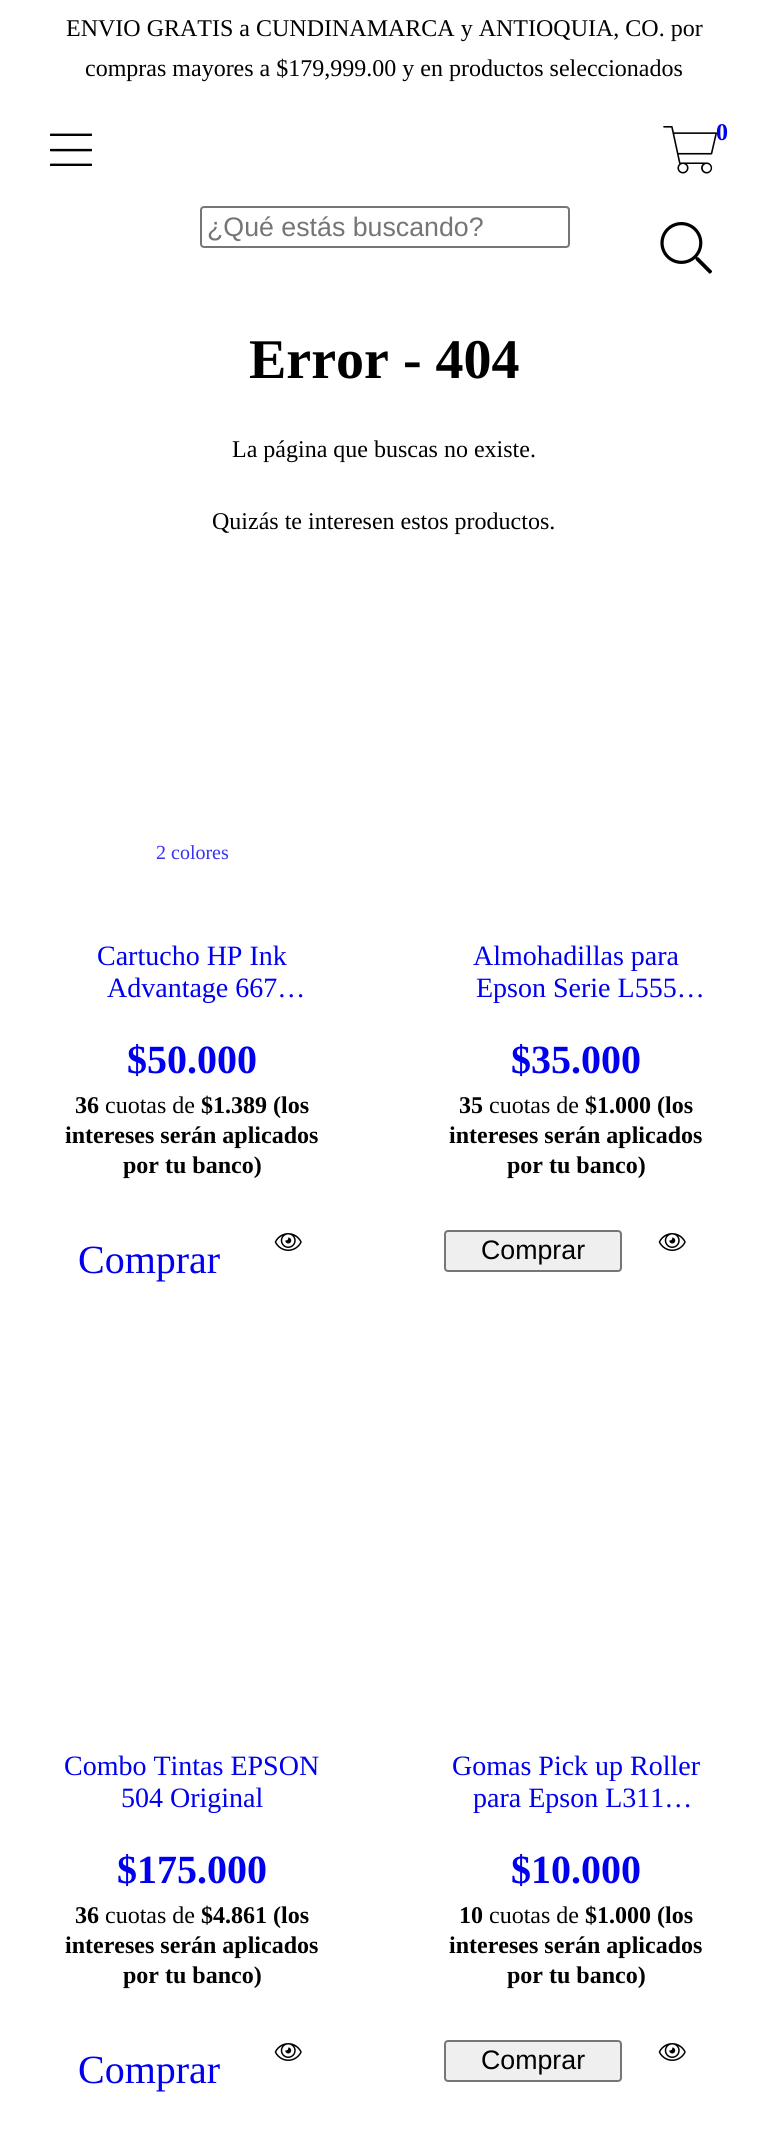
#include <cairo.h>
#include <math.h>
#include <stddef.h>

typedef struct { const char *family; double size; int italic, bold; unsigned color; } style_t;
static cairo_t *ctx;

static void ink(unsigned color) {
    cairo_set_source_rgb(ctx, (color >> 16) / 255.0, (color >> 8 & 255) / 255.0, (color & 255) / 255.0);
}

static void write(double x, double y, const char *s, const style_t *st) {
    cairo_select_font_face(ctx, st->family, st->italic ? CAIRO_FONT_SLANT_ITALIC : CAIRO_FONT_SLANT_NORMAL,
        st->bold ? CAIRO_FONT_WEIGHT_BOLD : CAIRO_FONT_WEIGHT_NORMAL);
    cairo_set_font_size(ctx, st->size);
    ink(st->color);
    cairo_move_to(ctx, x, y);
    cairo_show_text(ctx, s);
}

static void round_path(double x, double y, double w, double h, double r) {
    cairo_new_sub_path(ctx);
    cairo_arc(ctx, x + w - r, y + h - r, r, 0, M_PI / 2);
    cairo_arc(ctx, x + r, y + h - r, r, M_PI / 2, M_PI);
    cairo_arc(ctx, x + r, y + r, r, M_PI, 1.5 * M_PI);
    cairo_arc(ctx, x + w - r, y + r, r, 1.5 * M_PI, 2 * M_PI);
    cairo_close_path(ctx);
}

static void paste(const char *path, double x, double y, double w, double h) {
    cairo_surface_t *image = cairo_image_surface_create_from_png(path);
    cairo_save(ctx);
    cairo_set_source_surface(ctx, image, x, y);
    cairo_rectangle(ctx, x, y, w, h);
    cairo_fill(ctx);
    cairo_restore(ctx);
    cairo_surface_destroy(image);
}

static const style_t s1 = {"Liberation Serif", 24, 0, 0, 0x000000};
static const style_t s2 = {"Liberation Serif", 24, 0, 1, 0x0000ee};
static const style_t s3 = {"Liberation Sans", 26.75, 0, 0, 0x757575};
static const style_t s4 = {"Liberation Serif", 56, 0, 1, 0x000000};
static const style_t s5 = {"Liberation Serif", 20, 0, 0, 0x3333f1};
static const style_t s6 = {"Liberation Serif", 28, 0, 0, 0x0000ee};
static const style_t s7 = {"Liberation Serif", 40, 0, 1, 0x0000ee};
static const style_t s8 = {"Liberation Serif", 24, 0, 1, 0x000000};
static const style_t s9 = {"Liberation Serif", 40, 0, 0, 0x0000ee};
static const style_t s10 = {"Liberation Sans", 26.75, 0, 0, 0x000000};

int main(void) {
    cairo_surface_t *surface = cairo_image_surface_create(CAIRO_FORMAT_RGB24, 767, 2139);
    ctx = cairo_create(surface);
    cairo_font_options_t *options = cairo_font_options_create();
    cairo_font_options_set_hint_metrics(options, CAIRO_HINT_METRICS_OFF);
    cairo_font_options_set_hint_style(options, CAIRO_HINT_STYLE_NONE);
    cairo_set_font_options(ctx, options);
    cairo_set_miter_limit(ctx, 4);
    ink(0xffffff);
    cairo_paint(ctx);
    write(66, 36, "ENVIO GRATIS a CUNDINAMARCA y ANTIOQUIA, CO. por", &s1);
    write(85, 76, "compras mayores a $179,999.00 y en productos seleccionados", &s1);
    paste("pic1.png", 50, 133, 42, 33);
    paste("pic2.png", 663, 126, 54, 48);
    write(716, 140, "0", &s2);
    round_path(201, 207, 368, 40, 3);
    ink(0x767676);
    cairo_stroke(ctx);
    write(207, 236, "¿Qué estás buscando?", &s3);
    paste("pic3.png", 660, 222, 52, 52);
    write(249, 378, "Error - 404", &s4);
    write(232, 457, "La página que buscas no existe.", &s1);
    write(212, 529, "Quizás te interesen estos productos.", &s1);
    write(156, 859, "2 colores", &s5);
    write(97, 965, "Cartucho HP Ink", &s6);
    write(107, 997, "Advantage 667…", &s6);
    write(127, 1073, "$50.000", &s7);
    write(75, 1113, "36", &s8);
    write(105, 1113, "cuotas de", &s1);
    write(201, 1113, "$1.389 (los", &s8);
    write(65, 1143, "intereses serán aplicados", &s8);
    write(123, 1173, "por tu banco)", &s8);
    paste("pic4.png", 274, 1233, 28, 18);
    write(78, 1273, "Comprar", &s9);
    write(473, 965, "Almohadillas para", &s6);
    write(476, 997, "Epson Serie L555…", &s6);
    write(511, 1073, "$35.000", &s7);
    write(459, 1113, "35", &s8);
    write(489, 1113, "cuotas de", &s1);
    write(585, 1113, "$1.000 (los", &s8);
    write(449, 1143, "intereses serán aplicados", &s8);
    write(507, 1173, "por tu banco)", &s8);
    ink(0xefefef);
    round_path(445, 1231, 176, 40, 3);
    cairo_fill_preserve(ctx);
    ink(0x767676);
    cairo_stroke(ctx);
    write(481, 1259, "Comprar", &s10);
    paste("pic4.png", 658, 1233, 28, 18);
    write(64, 1775, "Combo Tintas EPSON", &s6);
    write(121, 1807, "504 Original", &s6);
    write(117, 1883, "$175.000", &s7);
    write(75, 1923, "36", &s8);
    write(105, 1923, "cuotas de", &s1);
    write(201, 1923, "$4.861 (los", &s8);
    write(65, 1953, "intereses serán aplicados", &s8);
    write(123, 1983, "por tu banco)", &s8);
    paste("pic4.png", 274, 2043, 28, 18);
    write(78, 2083, "Comprar", &s9);
    write(452, 1775, "Gomas Pick up Roller", &s6);
    write(473, 1807, "para Epson L311…", &s6);
    write(511, 1883, "$10.000", &s7);
    write(459, 1923, "10", &s8);
    write(489, 1923, "cuotas de", &s1);
    write(585, 1923, "$1.000 (los", &s8);
    write(449, 1953, "intereses serán aplicados", &s8);
    write(507, 1983, "por tu banco)", &s8);
    ink(0xefefef);
    round_path(445, 2041, 176, 40, 3);
    cairo_fill_preserve(ctx);
    ink(0x767676);
    cairo_stroke(ctx);
    write(481, 2069, "Comprar", &s10);
    paste("pic4.png", 658, 2043, 28, 18);
    cairo_surface_write_to_png(surface, "screenshot.png");
    cairo_font_options_destroy(options);
    cairo_destroy(ctx);
    cairo_surface_destroy(surface);
    return 0;
}
